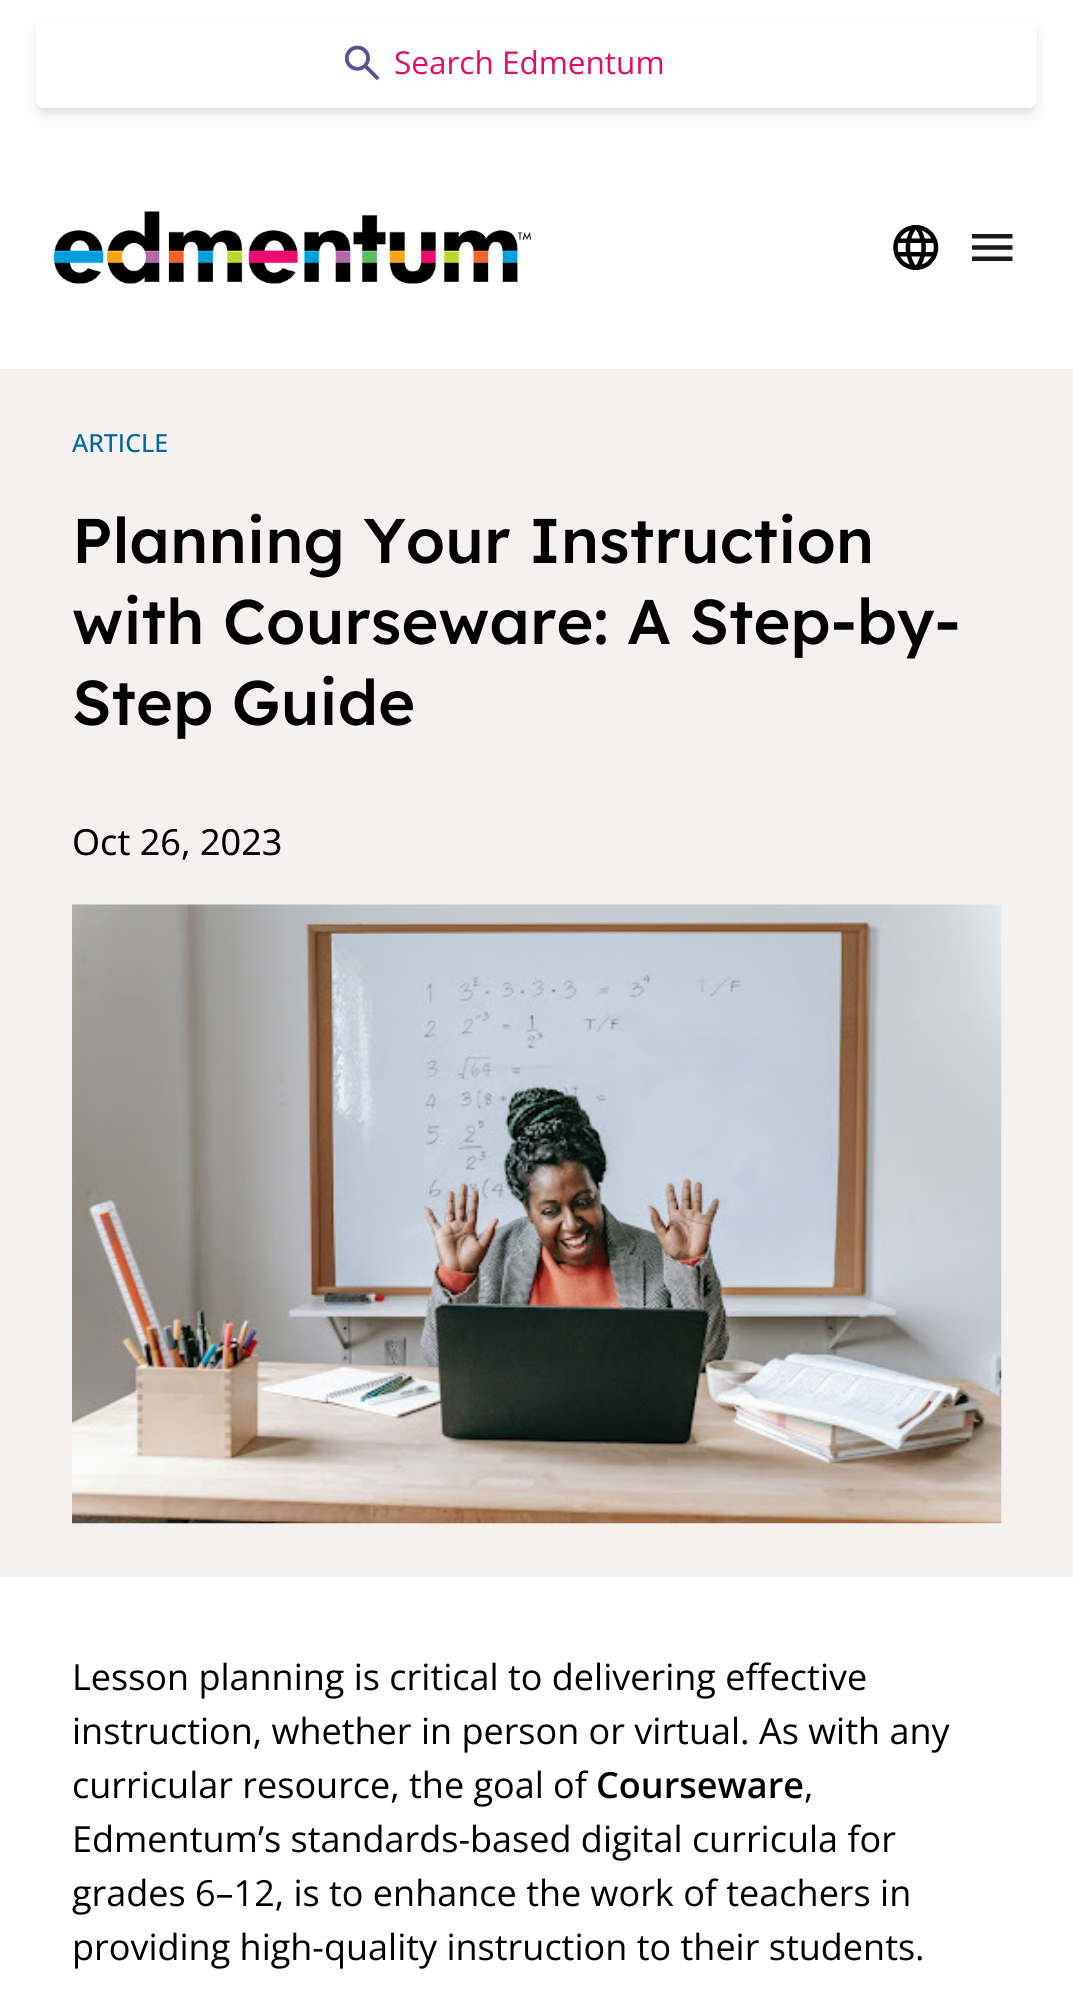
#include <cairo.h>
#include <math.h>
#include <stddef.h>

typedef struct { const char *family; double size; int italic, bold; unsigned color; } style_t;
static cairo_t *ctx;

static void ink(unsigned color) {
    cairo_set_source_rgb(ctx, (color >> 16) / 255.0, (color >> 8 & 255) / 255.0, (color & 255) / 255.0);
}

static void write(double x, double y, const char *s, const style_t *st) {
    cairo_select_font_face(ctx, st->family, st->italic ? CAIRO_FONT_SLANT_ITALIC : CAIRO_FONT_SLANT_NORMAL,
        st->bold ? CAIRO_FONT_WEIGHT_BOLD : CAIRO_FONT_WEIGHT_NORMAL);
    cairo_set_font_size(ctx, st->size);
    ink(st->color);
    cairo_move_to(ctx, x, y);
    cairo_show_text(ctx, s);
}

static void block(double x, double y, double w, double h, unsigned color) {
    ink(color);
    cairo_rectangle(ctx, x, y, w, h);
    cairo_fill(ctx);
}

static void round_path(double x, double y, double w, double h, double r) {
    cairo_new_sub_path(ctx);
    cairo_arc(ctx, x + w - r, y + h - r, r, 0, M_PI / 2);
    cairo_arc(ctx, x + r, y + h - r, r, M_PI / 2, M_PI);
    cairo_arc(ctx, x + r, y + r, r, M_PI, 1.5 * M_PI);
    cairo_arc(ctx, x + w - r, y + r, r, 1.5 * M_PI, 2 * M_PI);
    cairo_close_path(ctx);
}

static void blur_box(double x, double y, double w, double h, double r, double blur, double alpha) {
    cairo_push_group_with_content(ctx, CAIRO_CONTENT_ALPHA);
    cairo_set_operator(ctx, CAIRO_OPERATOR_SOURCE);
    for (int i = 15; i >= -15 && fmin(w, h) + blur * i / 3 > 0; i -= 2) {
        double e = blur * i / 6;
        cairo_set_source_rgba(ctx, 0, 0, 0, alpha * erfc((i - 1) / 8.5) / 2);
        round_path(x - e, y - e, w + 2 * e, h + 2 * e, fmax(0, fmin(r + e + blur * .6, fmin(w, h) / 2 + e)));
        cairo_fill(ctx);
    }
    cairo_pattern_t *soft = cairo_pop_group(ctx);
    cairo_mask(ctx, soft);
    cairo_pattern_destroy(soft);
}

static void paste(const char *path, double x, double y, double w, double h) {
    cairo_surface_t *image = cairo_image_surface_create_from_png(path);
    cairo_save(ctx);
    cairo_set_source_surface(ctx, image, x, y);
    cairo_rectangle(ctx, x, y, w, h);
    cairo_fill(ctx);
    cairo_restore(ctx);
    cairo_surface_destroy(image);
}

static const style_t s1 = {"Open Sans", 31.5, 0, 0, 0xe40b69};
static const style_t s2 = {"Open Sans Medium", 25, 0, 0, 0x00689e};
static const style_t s3 = {"Lexend Medium", 63, 0, 0, 0x000000};
static const style_t s4 = {"Noto Sans", 36, 0, 0, 0x000000};
static const style_t s5 = {"Open Sans", 36, 0, 0, 0x000000};
static const style_t s6 = {"Open Sans SemiBold", 36, 0, 0, 0x000000};

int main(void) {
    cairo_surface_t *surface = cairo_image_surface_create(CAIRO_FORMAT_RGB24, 1073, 2007);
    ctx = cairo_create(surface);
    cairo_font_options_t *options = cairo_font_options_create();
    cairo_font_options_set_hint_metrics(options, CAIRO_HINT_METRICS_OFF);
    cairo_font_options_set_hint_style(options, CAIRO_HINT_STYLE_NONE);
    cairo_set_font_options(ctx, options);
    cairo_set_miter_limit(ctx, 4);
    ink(0xffffff);
    cairo_paint(ctx);
    cairo_save(ctx);
    cairo_set_fill_rule(ctx, CAIRO_FILL_RULE_EVEN_ODD);
    cairo_new_path(ctx);
    cairo_move_to(ctx, 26, 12);
    cairo_line_to(ctx, 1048, 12);
    cairo_line_to(ctx, 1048, 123);
    cairo_line_to(ctx, 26, 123);
    cairo_close_path(ctx);
    cairo_move_to(ctx, 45, 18);
    cairo_line_to(ctx, 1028, 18);
    cairo_curve_to(ctx, 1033, 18, 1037, 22, 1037, 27);
    cairo_line_to(ctx, 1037, 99);
    cairo_curve_to(ctx, 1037, 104, 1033, 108, 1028, 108);
    cairo_line_to(ctx, 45, 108);
    cairo_curve_to(ctx, 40, 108, 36, 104, 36, 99);
    cairo_line_to(ctx, 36, 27);
    cairo_curve_to(ctx, 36, 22, 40, 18, 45, 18);
    cairo_close_path(ctx);
    cairo_clip(ctx);
    ink(0x000000);
    blur_box(41, 27, 992, 81, 5, 4.5, 0.1);
    cairo_restore(ctx);
    cairo_save(ctx);
    cairo_set_fill_rule(ctx, CAIRO_FILL_RULE_EVEN_ODD);
    cairo_new_path(ctx);
    cairo_move_to(ctx, 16, 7);
    cairo_line_to(ctx, 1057, 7);
    cairo_line_to(ctx, 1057, 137);
    cairo_line_to(ctx, 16, 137);
    cairo_close_path(ctx);
    cairo_move_to(ctx, 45, 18);
    cairo_line_to(ctx, 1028, 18);
    cairo_curve_to(ctx, 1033, 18, 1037, 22, 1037, 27);
    cairo_line_to(ctx, 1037, 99);
    cairo_curve_to(ctx, 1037, 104, 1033, 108, 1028, 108);
    cairo_line_to(ctx, 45, 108);
    cairo_curve_to(ctx, 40, 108, 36, 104, 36, 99);
    cairo_line_to(ctx, 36, 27);
    cairo_curve_to(ctx, 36, 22, 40, 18, 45, 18);
    cairo_close_path(ctx);
    cairo_clip(ctx);
    ink(0x000000);
    blur_box(38, 29, 997, 86, 7, 7, 0.1);
    cairo_restore(ctx);
    paste("pic1.png", 344, 45, 36, 36);
    write(394, 74, "Search Edmentum", &s1);
    paste("pic2.png", 54, 211, 477, 73);
    paste("pic3.png", 893, 225, 46, 45);
    paste("pic4.png", 972, 234, 41, 27);
    block(0, 369, 1073, 1208, 0xf4f1f0);
    write(72, 452, "ARTICLE", &s2);
    write(72, 563, "Planning Your Instruction", &s3);
    write(72, 644, "with Courseware: A Step-by-", &s3);
    write(72, 725, "Step Guide", &s3);
    write(72, 855, "Oct 26, 2023", &s4);
    paste("pic5.png", 72, 904, 930, 620);
    write(72, 1690, "Lesson planning is critical to delivering effective", &s5);
    write(72, 1744, "instruction, whether in person or virtual. As with any", &s5);
    write(72, 1798, "curricular resource, the goal of", &s5);
    write(596, 1798, "Courseware", &s6);
    write(804, 1798, ",", &s5);
    write(72, 1852, "Edmentum’s standards-based digital curricula for", &s5);
    write(72, 1906, "grades 6–12, is to enhance the work of teachers in", &s5);
    write(72, 1960, "providing high-quality instruction to their students.", &s5);
    cairo_surface_write_to_png(surface, "screenshot.png");
    cairo_font_options_destroy(options);
    cairo_destroy(ctx);
    cairo_surface_destroy(surface);
    return 0;
}
